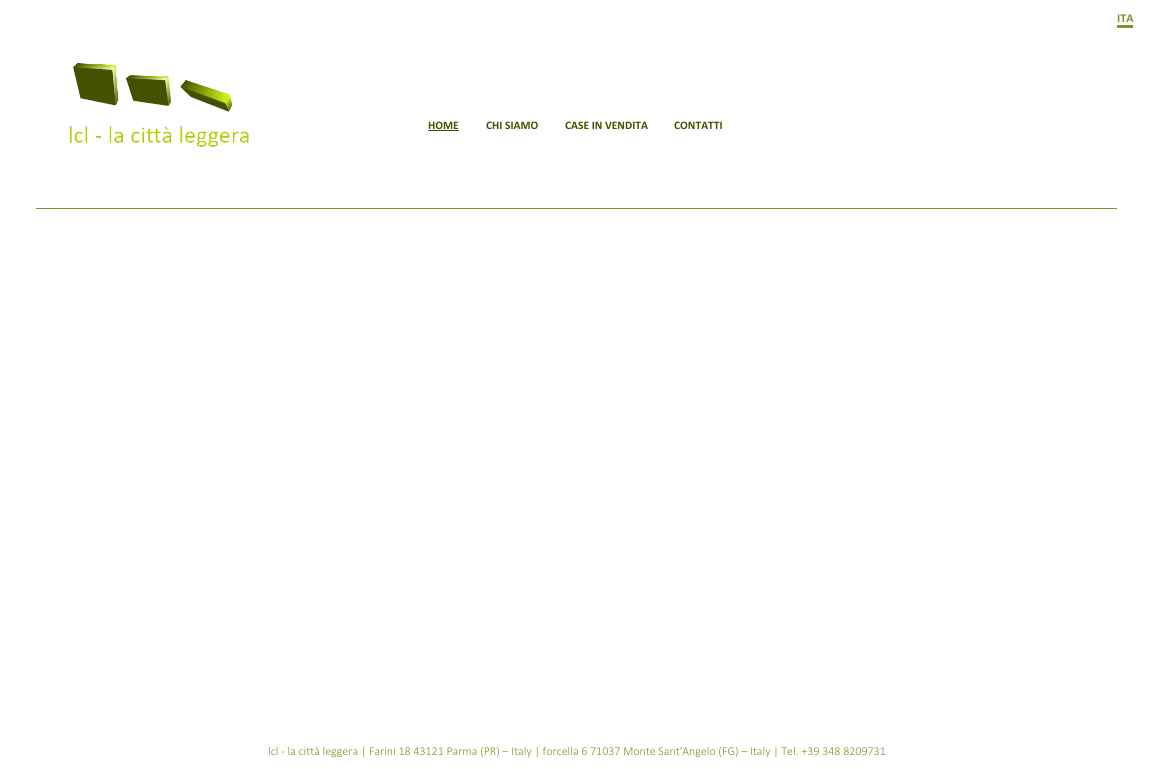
#include <cairo.h>
#include <math.h>
#include <stddef.h>

typedef struct { const char *family; double size; int italic, bold; unsigned color; } style_t;
static cairo_t *ctx;

static void ink(unsigned color) {
    cairo_set_source_rgb(ctx, (color >> 16) / 255.0, (color >> 8 & 255) / 255.0, (color & 255) / 255.0);
}

static void write(double x, double y, const char *s, const style_t *st) {
    cairo_select_font_face(ctx, st->family, st->italic ? CAIRO_FONT_SLANT_ITALIC : CAIRO_FONT_SLANT_NORMAL,
        st->bold ? CAIRO_FONT_WEIGHT_BOLD : CAIRO_FONT_WEIGHT_NORMAL);
    cairo_set_font_size(ctx, st->size);
    ink(st->color);
    cairo_move_to(ctx, x, y);
    cairo_show_text(ctx, s);
}

static void block(double x, double y, double w, double h, unsigned color) {
    ink(color);
    cairo_rectangle(ctx, x, y, w, h);
    cairo_fill(ctx);
}

static void paste(const char *path, double x, double y, double w, double h) {
    cairo_surface_t *image = cairo_image_surface_create_from_png(path);
    cairo_save(ctx);
    cairo_set_source_surface(ctx, image, x, y);
    cairo_rectangle(ctx, x, y, w, h);
    cairo_fill(ctx);
    cairo_restore(ctx);
    cairo_surface_destroy(image);
}

static const style_t s1 = {"Calibri", 12, 0, 1, 0x819122};
static const style_t s2 = {"Calibri", 11.5, 0, 1, 0x445200};
static const style_t s3 = {"Calibri Light", 12, 0, 0, 0x819122};

int main(void) {
    cairo_surface_t *surface = cairo_image_surface_create(CAIRO_FORMAT_RGB24, 1153, 769);
    ctx = cairo_create(surface);
    cairo_font_options_t *options = cairo_font_options_create();
    cairo_font_options_set_hint_metrics(options, CAIRO_HINT_METRICS_OFF);
    cairo_font_options_set_hint_style(options, CAIRO_HINT_STYLE_NONE);
    cairo_set_font_options(ctx, options);
    cairo_set_miter_limit(ctx, 4);
    ink(0xffffff);
    cairo_paint(ctx);
    write(1117, 22, "ITA", &s1);
    block(1117, 25, 16, 3, 0x819122);
    paste("pic1.png", 69, 63, 180, 84);
    write(428, 129, "HOME", &s2);
    block(428, 130, 31, 1, 0x445200);
    write(486, 129, "CHI SIAMO", &s2);
    write(565, 129, "CASE IN VENDITA", &s2);
    write(674, 129, "CONTATTI", &s2);
    block(36, 208, 1081, 1, 0x819122);
    write(268, 755, "lcl - la città leggera | Farini 18 43121 Parma (PR) – Italy | forcella 6 71037 Monte Sant'Angelo (FG) – Italy | Tel. +39 348 8209731", &s3);
    cairo_surface_write_to_png(surface, "screenshot.png");
    cairo_font_options_destroy(options);
    cairo_destroy(ctx);
    cairo_surface_destroy(surface);
    return 0;
}
